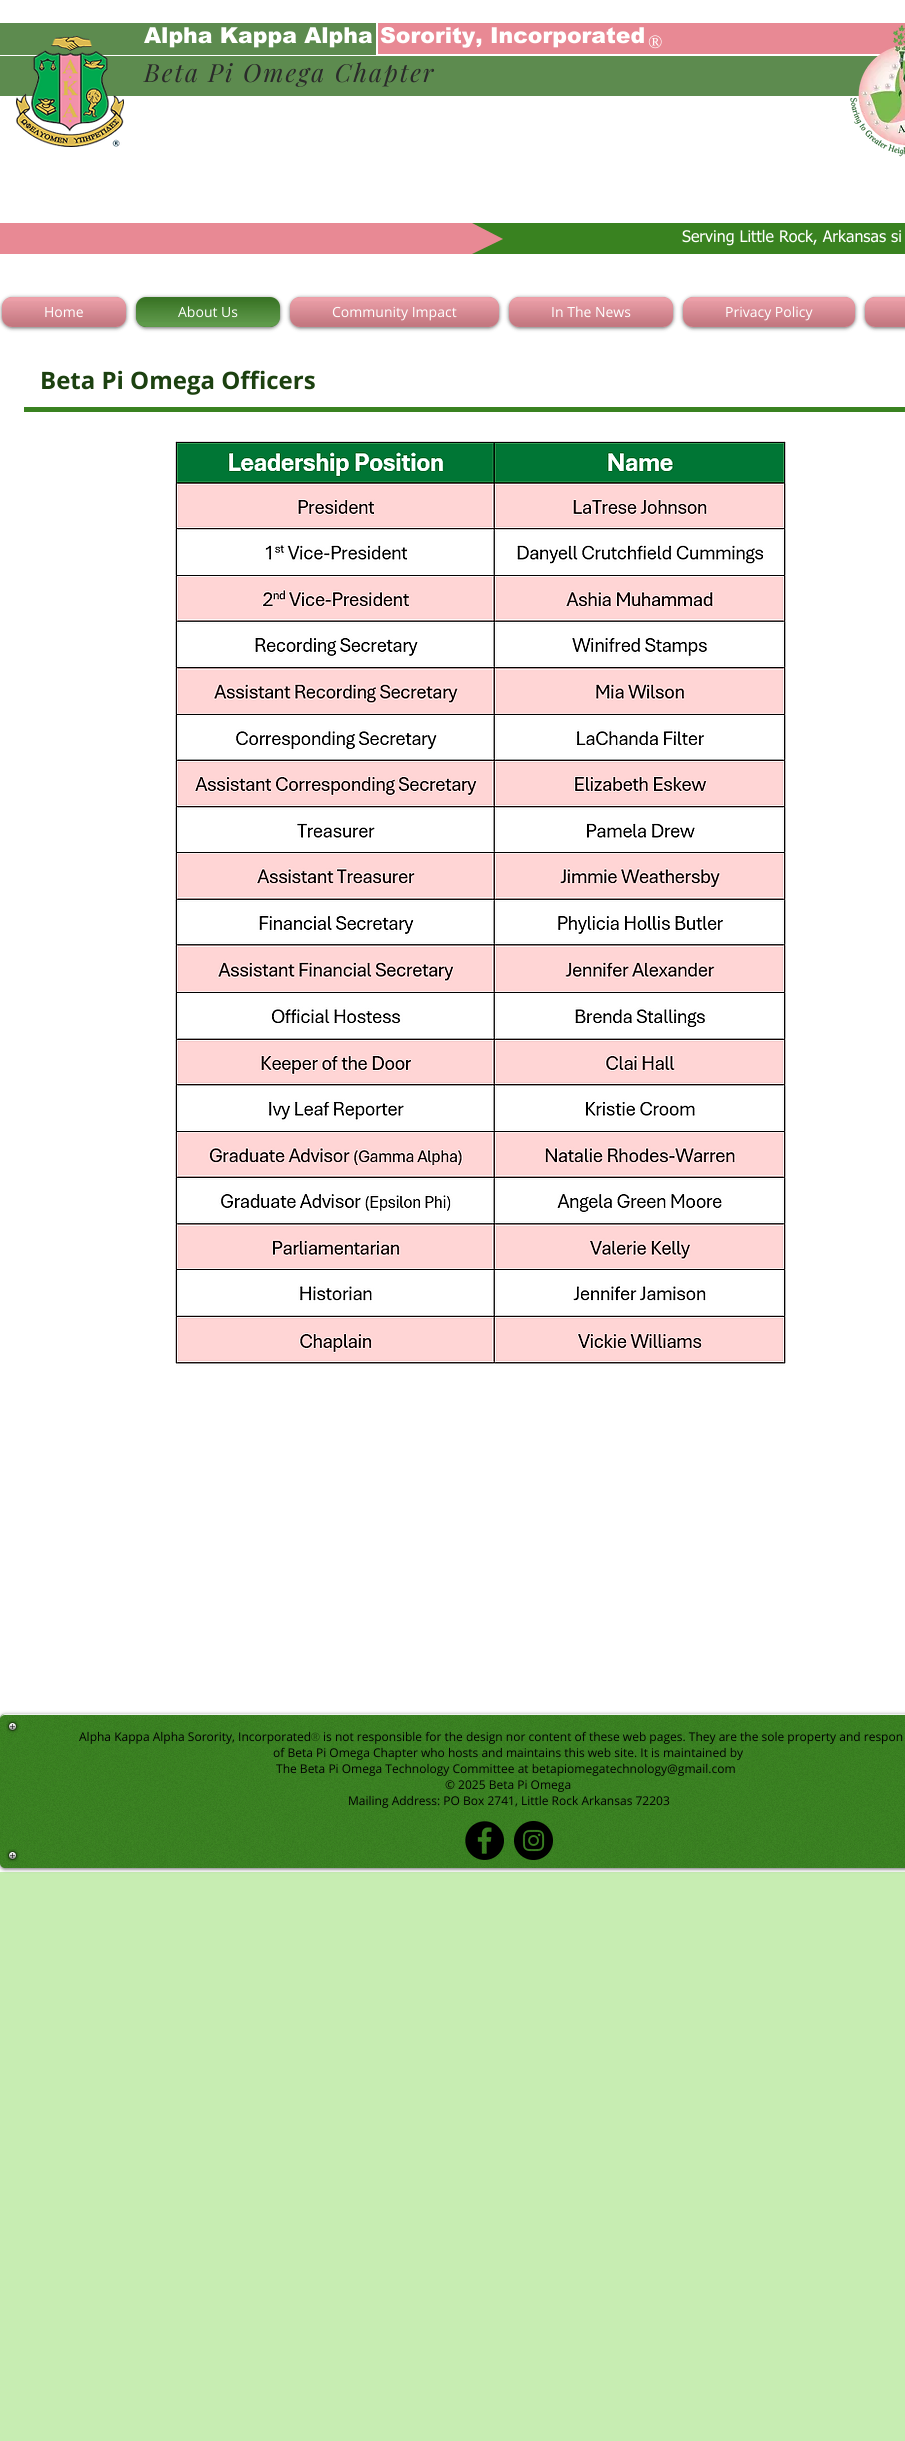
#include <cairo.h>
#include <math.h>
#include <stddef.h>

typedef struct { const char *family; double size; int italic, bold; unsigned color; } style_t;
static cairo_t *ctx;

static void ink(unsigned color) {
    cairo_set_source_rgb(ctx, (color >> 16) / 255.0, (color >> 8 & 255) / 255.0, (color & 255) / 255.0);
}

static void write(double x, double y, const char *s, const style_t *st) {
    cairo_select_font_face(ctx, st->family, st->italic ? CAIRO_FONT_SLANT_ITALIC : CAIRO_FONT_SLANT_NORMAL,
        st->bold ? CAIRO_FONT_WEIGHT_BOLD : CAIRO_FONT_WEIGHT_NORMAL);
    cairo_set_font_size(ctx, st->size);
    ink(st->color);
    cairo_move_to(ctx, x, y);
    cairo_show_text(ctx, s);
}

static void write_spaced(double x, double y, const char *s, double letter, double word) {
    cairo_move_to(ctx, x, y);
    while (*s) {
        char ch[5] = {0};
        int n = 0;
        do ch[n++] = *s++; while ((*s & 0xC0) == 0x80);
        cairo_show_text(ctx, ch);
        cairo_rel_move_to(ctx, letter + word * (*ch == ' '), 0);
    }
}

static void block(double x, double y, double w, double h, unsigned color) {
    ink(color);
    cairo_rectangle(ctx, x, y, w, h);
    cairo_fill(ctx);
}

static void round_path(double x, double y, double w, double h, double r) {
    cairo_new_sub_path(ctx);
    cairo_arc(ctx, x + w - r, y + h - r, r, 0, M_PI / 2);
    cairo_arc(ctx, x + r, y + h - r, r, M_PI / 2, M_PI);
    cairo_arc(ctx, x + r, y + r, r, M_PI, 1.5 * M_PI);
    cairo_arc(ctx, x + w - r, y + r, r, 1.5 * M_PI, 2 * M_PI);
    cairo_close_path(ctx);
}

static void blur_box(double x, double y, double w, double h, double r, double blur, double alpha) {
    cairo_push_group_with_content(ctx, CAIRO_CONTENT_ALPHA);
    cairo_set_operator(ctx, CAIRO_OPERATOR_SOURCE);
    for (int i = 15; i >= -15 && fmin(w, h) + blur * i / 3 > 0; i -= 2) {
        double e = blur * i / 6;
        cairo_set_source_rgba(ctx, 0, 0, 0, alpha * erfc((i - 1) / 8.5) / 2);
        round_path(x - e, y - e, w + 2 * e, h + 2 * e, fmax(0, fmin(r + e + blur * .6, fmin(w, h) / 2 + e)));
        cairo_fill(ctx);
    }
    cairo_pattern_t *soft = cairo_pop_group(ctx);
    cairo_mask(ctx, soft);
    cairo_pattern_destroy(soft);
}

static void paste(const char *path, double x, double y, double w, double h) {
    cairo_surface_t *image = cairo_image_surface_create_from_png(path);
    cairo_save(ctx);
    cairo_set_source_surface(ctx, image, x, y);
    cairo_rectangle(ctx, x, y, w, h);
    cairo_fill(ctx);
    cairo_restore(ctx);
    cairo_surface_destroy(image);
}

static const style_t s1 = {"arial Black", 22, 0, 0, 0xfffffe};
static const style_t s2 = {"Liberation Serif", 19, 0, 0, 0xfffffe};
static const style_t s3 = {"tahoma", 16, 0, 0, 0xfffffe};
static const style_t s4 = {"Open Sans", 14, 0, 0, 0xfffffe};
static const style_t s5 = {"Open Sans", 24, 0, 1, 0x1c4110};
static const style_t s6 = {"Open Sans", 12, 0, 0, 0x000000};
static const style_t s7 = {"Liberation Sans", 12, 0, 0, 0x1c4110};

int main(void) {
    cairo_surface_t *surface = cairo_image_surface_create(CAIRO_FORMAT_RGB24, 905, 2441);
    ctx = cairo_create(surface);
    cairo_font_options_t *options = cairo_font_options_create();
    cairo_font_options_set_hint_metrics(options, CAIRO_HINT_METRICS_OFF);
    cairo_font_options_set_hint_style(options, CAIRO_HINT_STYLE_NONE);
    cairo_set_font_options(ctx, options);
    cairo_set_miter_limit(ctx, 4);
    ink(0xc7edb2);
    cairo_paint(ctx);
    block(0, 0, 905, 1872, 0xffffff);
    block(0, 23, 376, 32, 0x5d8b4f);
    block(378, 23, 527, 31, 0xe88994);
    block(0, 56, 881, 40, 0x5d8b4f);
    paste("pic1.png", 16, 36, 108, 111);
    write(144, 43, "Alpha Kappa Alpha Sorority, Incorporated", &s1);
    write(648, 48, "®", &s2);
    paste("pic2.png", 850, 24, 55, 133);
    cairo_select_font_face(ctx, "Playfair Display", CAIRO_FONT_SLANT_ITALIC, CAIRO_FONT_WEIGHT_NORMAL);
    cairo_set_font_size(ctx, 25);
    ink(0x2a2a2a);
    write_spaced(144, 82, "Beta Pi Omega Chapter", 2, 0);
    block(0, 223, 503, 31, 0xe88994);
    ink(0x398220);
    cairo_new_path(ctx);
    cairo_move_to(ctx, 472, 254);
    cairo_line_to(ctx, 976, 254);
    cairo_line_to(ctx, 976, 223);
    cairo_line_to(ctx, 472, 223);
    cairo_line_to(ctx, 503, 239);
    cairo_close_path(ctx);
    cairo_fill(ctx);
    write(682, 242, "Serving Little Rock, Arkansas si", &s3);
    ink(0x000000);
    blur_box(2, 298, 124, 30, 10, 2, 0.6);
    ink(0xe88994);
    round_path(2, 297, 124, 30, 10);
    cairo_fill(ctx);
    paste("pic3.png", 2, 297, 124, 30);
    paste("pic4.png", 2, 301, 124, 26);
    write(44, 317, "Home", &s4);
    ink(0x000000);
    blur_box(136, 298, 144, 30, 10, 2, 0.6);
    ink(0x398220);
    round_path(136, 297, 144, 30, 10);
    cairo_fill(ctx);
    paste("pic5.png", 136, 297, 144, 25);
    paste("pic6.png", 136, 297, 144, 30);
    write(178, 317, "About Us", &s4);
    ink(0x000000);
    blur_box(290, 298, 209, 30, 10, 2, 0.6);
    ink(0xe88994);
    round_path(290, 297, 209, 30, 10);
    cairo_fill(ctx);
    paste("pic7.png", 290, 297, 209, 30);
    paste("pic8.png", 290, 301, 209, 26);
    write(332, 317, "Community Impact", &s4);
    ink(0x000000);
    blur_box(509, 298, 164, 30, 10, 2, 0.6);
    ink(0xe88994);
    round_path(509, 297, 164, 30, 10);
    cairo_fill(ctx);
    paste("pic9.png", 509, 297, 164, 30);
    paste("pic10.png", 509, 301, 164, 26);
    write(551, 317, "In The News", &s4);
    ink(0x000000);
    blur_box(683, 298, 172, 30, 10, 2, 0.6);
    ink(0xe88994);
    round_path(683, 297, 172, 30, 10);
    cairo_fill(ctx);
    paste("pic11.png", 683, 297, 172, 30);
    paste("pic12.png", 683, 301, 172, 26);
    write(725, 317, "Privacy Policy", &s4);
    ink(0x000000);
    blur_box(865, 298, 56, 30, 10, 2, 0.6);
    ink(0xe88994);
    round_path(865, 297, 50, 30, 10);
    cairo_fill(ctx);
    paste("pic13.png", 865, 297, 40, 30);
    paste("pic14.png", 865, 301, 40, 26);
    write(40, 389, "Beta Pi Omega Officers", &s5);
    block(24, 407, 881, 5, 0x398220);
    paste("pic15.png", 175, 441, 611, 925);
    ink(0x000000);
    blur_box(0, 1715, 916, 154, 5, 2, 0.6);
    ink(0x398220);
    round_path(0, 1714, 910, 154, 5);
    cairo_fill(ctx);
    paste("pic16.png", 0, 1714, 905, 154);
    cairo_set_source_rgba(ctx, 1, 1, 1, 0.92);
    cairo_new_path(ctx);
    cairo_move_to(ctx, 5, 1715);
    cairo_line_to(ctx, 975, 1715);
    cairo_curve_to(ctx, 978, 1715, 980, 1717, 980, 1720);
    cairo_curve_to(ctx, 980, 1717, 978, 1714, 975, 1714);
    cairo_line_to(ctx, 5, 1714);
    cairo_curve_to(ctx, 2, 1714, 0, 1717, 0, 1720);
    cairo_curve_to(ctx, 0, 1717, 2, 1715, 5, 1715);
    cairo_close_path(ctx);
    cairo_fill(ctx);
    paste("pic17.png", 6, 1720, 13, 13);
    write(79, 1741, "Alpha Kappa Alpha Sorority, Incorporated", &s6);
    write(311, 1741, "®", &s7);
    write(323, 1741, "is not responsible for the design nor content of these web pages. They are the sole property and respon", &s6);
    write(273, 1757, "of Beta Pi Omega Chapter who hosts and maintains this web site. It is maintained by", &s6);
    write(276, 1773, "The Beta Pi Omega Technology Committee at betapiomegatechnology@gmail.com", &s6);
    write(445, 1789, "© 2025 Beta Pi Omega", &s6);
    write(348, 1805, "Mailing Address: PO Box 2741, Little Rock Arkansas 72203", &s6);
    paste("pic18.png", 465, 1821, 39, 39);
    paste("pic19.png", 514, 1821, 39, 39);
    paste("pic20.png", 6, 1849, 13, 13);
    cairo_surface_write_to_png(surface, "screenshot.png");
    cairo_font_options_destroy(options);
    cairo_destroy(ctx);
    cairo_surface_destroy(surface);
    return 0;
}
